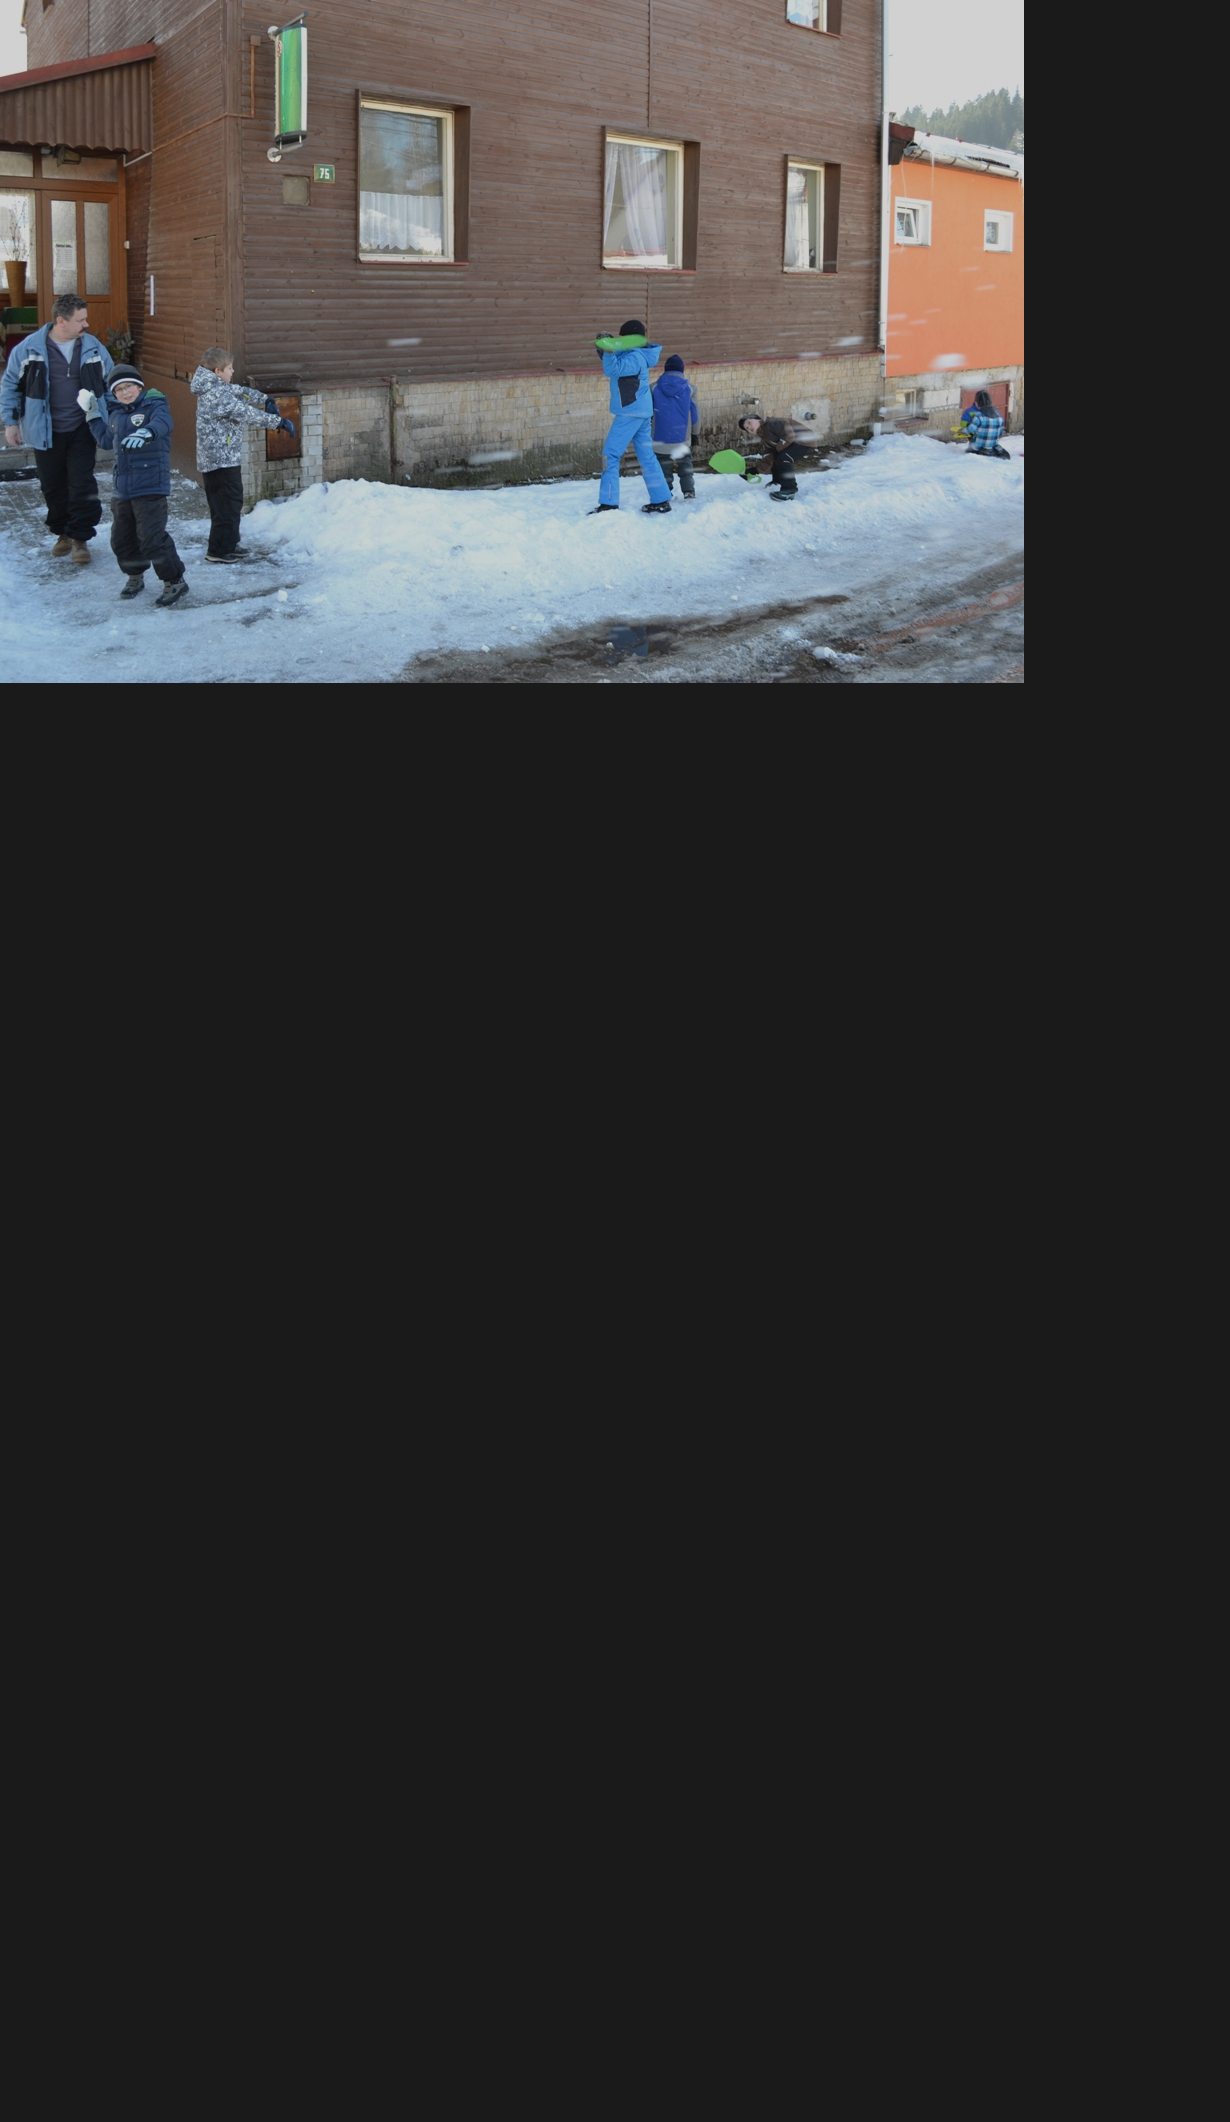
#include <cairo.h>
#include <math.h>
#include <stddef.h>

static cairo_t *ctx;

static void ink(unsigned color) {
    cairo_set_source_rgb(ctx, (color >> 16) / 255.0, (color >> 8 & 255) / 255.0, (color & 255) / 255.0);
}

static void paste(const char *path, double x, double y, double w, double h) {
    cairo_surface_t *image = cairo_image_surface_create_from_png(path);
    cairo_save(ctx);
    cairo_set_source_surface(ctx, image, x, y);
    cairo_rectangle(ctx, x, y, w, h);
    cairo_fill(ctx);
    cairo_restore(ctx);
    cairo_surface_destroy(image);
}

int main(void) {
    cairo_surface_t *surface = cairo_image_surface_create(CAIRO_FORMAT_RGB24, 1230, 2122);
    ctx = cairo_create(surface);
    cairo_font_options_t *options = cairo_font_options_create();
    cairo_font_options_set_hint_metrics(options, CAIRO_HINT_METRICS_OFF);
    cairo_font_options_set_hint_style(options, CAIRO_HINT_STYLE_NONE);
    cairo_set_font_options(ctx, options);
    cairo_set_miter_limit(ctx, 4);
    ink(0x1a1a1a);
    cairo_paint(ctx);
    paste("pic1.png", 0, 0, 1024, 683);
    cairo_surface_write_to_png(surface, "screenshot.png");
    cairo_font_options_destroy(options);
    cairo_destroy(ctx);
    cairo_surface_destroy(surface);
    return 0;
}
